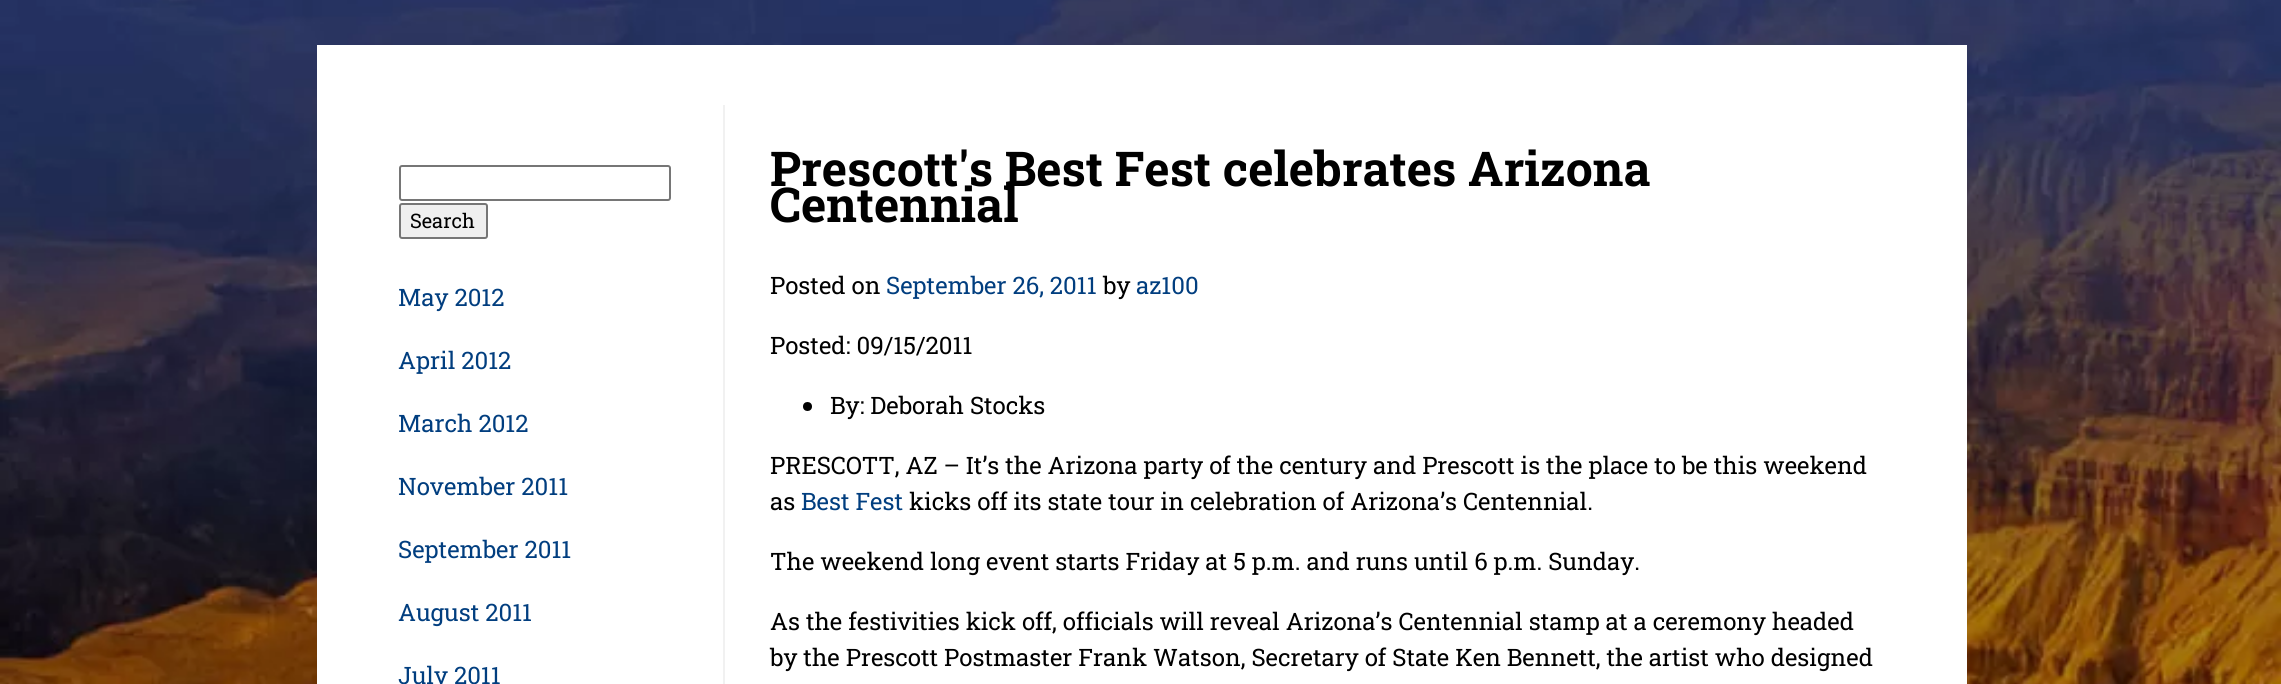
#include <cairo.h>
#include <math.h>
#include <stddef.h>

typedef struct { const char *family; double size; int italic, bold; unsigned color; } style_t;
static cairo_t *ctx;

static void ink(unsigned color) {
    cairo_set_source_rgb(ctx, (color >> 16) / 255.0, (color >> 8 & 255) / 255.0, (color & 255) / 255.0);
}

static void write(double x, double y, const char *s, const style_t *st) {
    cairo_select_font_face(ctx, st->family, st->italic ? CAIRO_FONT_SLANT_ITALIC : CAIRO_FONT_SLANT_NORMAL,
        st->bold ? CAIRO_FONT_WEIGHT_BOLD : CAIRO_FONT_WEIGHT_NORMAL);
    cairo_set_font_size(ctx, st->size);
    ink(st->color);
    cairo_move_to(ctx, x, y);
    cairo_show_text(ctx, s);
}

static void block(double x, double y, double w, double h, unsigned color) {
    ink(color);
    cairo_rectangle(ctx, x, y, w, h);
    cairo_fill(ctx);
}

static void round_path(double x, double y, double w, double h, double r) {
    cairo_new_sub_path(ctx);
    cairo_arc(ctx, x + w - r, y + h - r, r, 0, M_PI / 2);
    cairo_arc(ctx, x + r, y + h - r, r, M_PI / 2, M_PI);
    cairo_arc(ctx, x + r, y + r, r, M_PI, 1.5 * M_PI);
    cairo_arc(ctx, x + w - r, y + r, r, 1.5 * M_PI, 2 * M_PI);
    cairo_close_path(ctx);
}

static void paste(const char *path, double x, double y, double w, double h) {
    cairo_surface_t *image = cairo_image_surface_create_from_png(path);
    cairo_save(ctx);
    cairo_set_source_surface(ctx, image, x, y);
    cairo_rectangle(ctx, x, y, w, h);
    cairo_fill(ctx);
    cairo_restore(ctx);
    cairo_surface_destroy(image);
}

static const style_t s1 = {"Roboto Slab", 20, 0, 0, 0x000000};
static const style_t s2 = {"Roboto Slab", 24, 0, 0, 0x013e7f};
static const style_t s3 = {"Roboto Slab", 48, 0, 1, 0x000000};
static const style_t s4 = {"Roboto Slab", 24, 0, 0, 0x000000};

int main(void) {
    cairo_surface_t *surface = cairo_image_surface_create(CAIRO_FORMAT_RGB24, 2281, 684);
    ctx = cairo_create(surface);
    cairo_font_options_t *options = cairo_font_options_create();
    cairo_font_options_set_hint_metrics(options, CAIRO_HINT_METRICS_OFF);
    cairo_font_options_set_hint_style(options, CAIRO_HINT_STYLE_NONE);
    cairo_set_font_options(ctx, options);
    cairo_set_miter_limit(ctx, 4);
    ink(0xffffff);
    cairo_paint(ctx);
    paste("pic1.png", 0, 0, 2281, 684);
    block(317, 45, 1650, 639, 0xffffff);
    round_path(400, 166, 270, 34, 2);
    ink(0x767676);
    cairo_stroke(ctx);
    ink(0xefefef);
    round_path(400, 204, 87, 34, 2);
    cairo_fill_preserve(ctx);
    ink(0x767676);
    cairo_stroke(ctx);
    write(410, 228, "Search", &s1);
    write(398, 306, "May 2012", &s2);
    write(398, 369, "April 2012", &s2);
    write(398, 432, "March 2012", &s2);
    write(398, 495, "November 2011", &s2);
    write(398, 558, "September 2011", &s2);
    write(398, 621, "August 2011", &s2);
    write(398, 684, "July 2011", &s2);
    block(723, 105, 2, 579, 0xf1f1f1);
    write(770, 186, "Prescott's Best Fest celebrates Arizona", &s3);
    write(770, 222, "Centennial", &s3);
    write(770, 294, "Posted on", &s4);
    write(886, 294, "September 26, 2011", &s2);
    write(1103, 294, "by", &s4);
    write(1136, 294, "az100", &s2);
    write(770, 354, "Posted: 09/15/2011", &s4);
    cairo_new_path(ctx);
    cairo_arc(ctx, 807.5, 406.5, 4.5, 0, 2 * M_PI);
    cairo_fill(ctx);
    write(830, 414, "By: Deborah Stocks", &s4);
    write(770, 474, "PRESCOTT, AZ – It’s the Arizona party of the century and Prescott is the place to be this weekend", &s4);
    write(770, 510, "as", &s4);
    write(801, 510, "Best Fest", &s2);
    write(909, 510, "kicks off its state tour in celebration of Arizona’s Centennial.", &s4);
    write(770, 570, "The weekend long event starts Friday at 5 p.m. and runs until 6 p.m. Sunday.", &s4);
    write(770, 630, "As the festivities kick off, officials will reveal Arizona’s Centennial stamp at a ceremony headed", &s4);
    write(770, 666, "by the Prescott Postmaster Frank Watson, Secretary of State Ken Bennett, the artist who designed", &s4);
    cairo_surface_write_to_png(surface, "screenshot.png");
    cairo_font_options_destroy(options);
    cairo_destroy(ctx);
    cairo_surface_destroy(surface);
    return 0;
}
